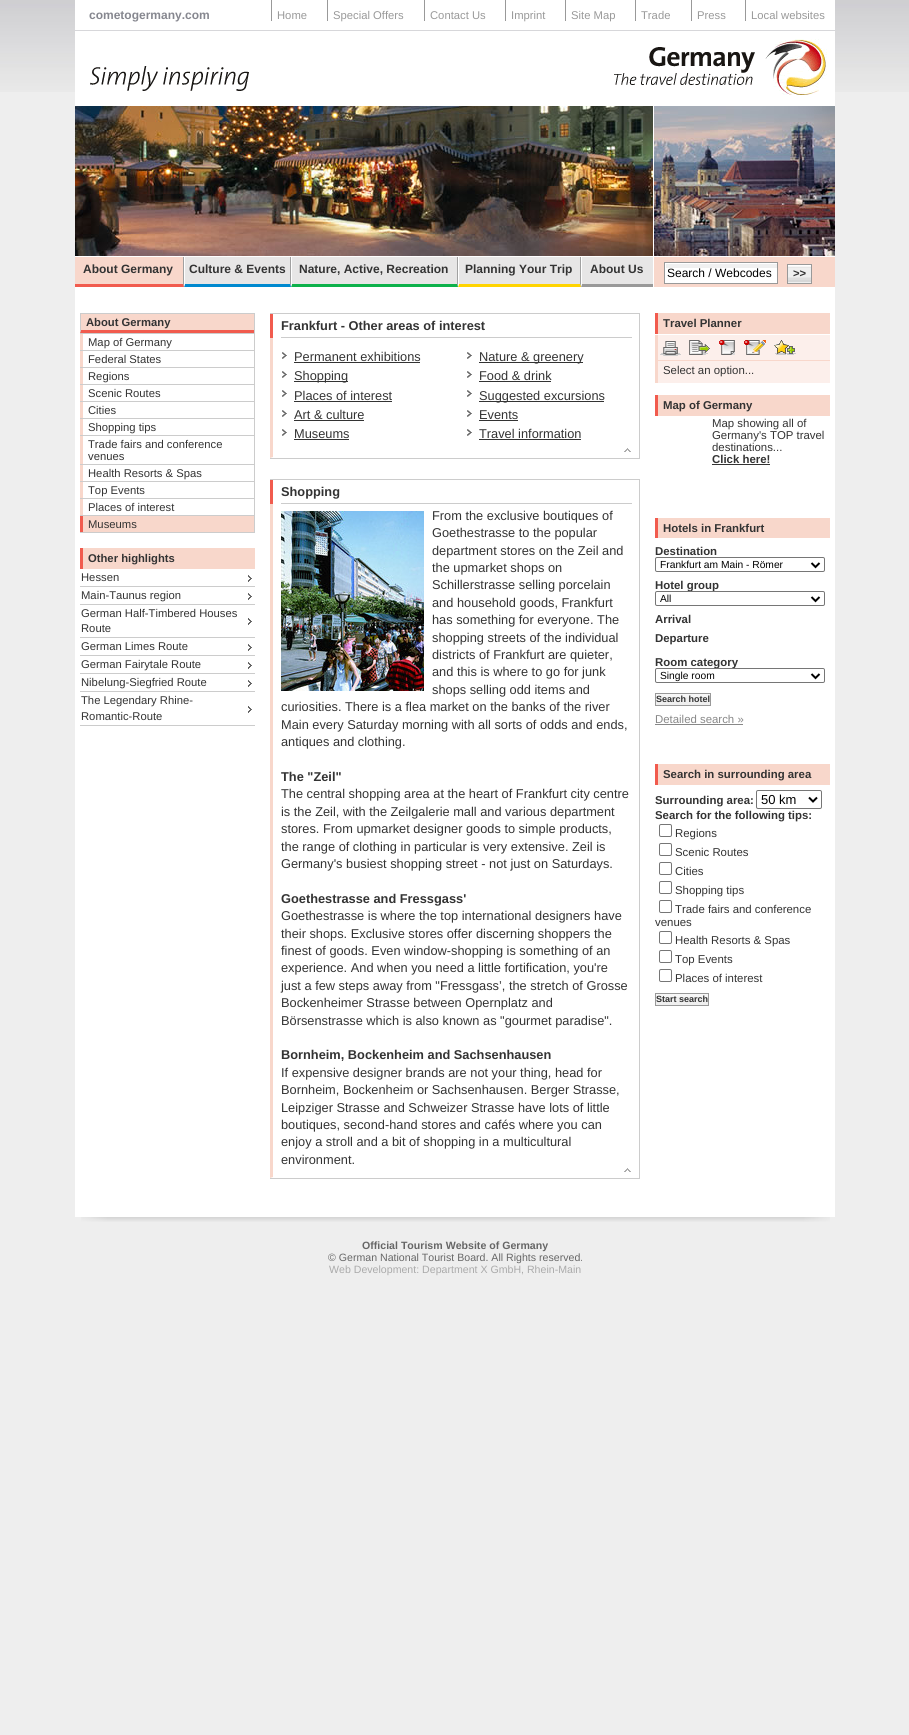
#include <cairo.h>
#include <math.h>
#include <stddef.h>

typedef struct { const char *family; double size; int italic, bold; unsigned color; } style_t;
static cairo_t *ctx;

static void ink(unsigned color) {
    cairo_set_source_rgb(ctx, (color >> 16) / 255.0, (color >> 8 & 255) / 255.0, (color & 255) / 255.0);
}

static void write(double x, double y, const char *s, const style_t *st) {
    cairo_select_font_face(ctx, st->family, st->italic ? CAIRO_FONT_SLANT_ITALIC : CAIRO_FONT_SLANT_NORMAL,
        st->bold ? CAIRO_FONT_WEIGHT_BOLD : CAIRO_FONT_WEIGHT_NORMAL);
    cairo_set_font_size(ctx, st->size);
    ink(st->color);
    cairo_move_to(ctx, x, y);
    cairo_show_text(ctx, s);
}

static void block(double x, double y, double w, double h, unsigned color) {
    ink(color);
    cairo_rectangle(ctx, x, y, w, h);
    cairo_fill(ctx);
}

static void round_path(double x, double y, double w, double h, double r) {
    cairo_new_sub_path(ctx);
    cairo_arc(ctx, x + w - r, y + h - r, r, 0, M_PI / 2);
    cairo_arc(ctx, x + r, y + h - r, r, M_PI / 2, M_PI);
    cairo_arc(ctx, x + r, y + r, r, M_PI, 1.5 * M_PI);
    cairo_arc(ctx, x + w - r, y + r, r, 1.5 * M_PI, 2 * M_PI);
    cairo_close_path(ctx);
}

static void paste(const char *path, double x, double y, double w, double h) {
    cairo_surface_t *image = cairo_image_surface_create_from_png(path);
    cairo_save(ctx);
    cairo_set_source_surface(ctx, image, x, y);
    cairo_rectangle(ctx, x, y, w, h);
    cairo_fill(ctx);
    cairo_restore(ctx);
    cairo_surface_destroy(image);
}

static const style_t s1 = {"Liberation Sans", 12, 0, 1, 0x86878f};
static const style_t s2 = {"Liberation Sans", 11.25, 0, 0, 0x999999};
static const style_t s3 = {"Liberation Sans", 12, 0, 1, 0x333333};
static const style_t s4 = {"Liberation Sans", 12, 0, 0, 0x000000};
static const style_t s5 = {"Liberation Sans", 11.25, 0, 1, 0x333333};
static const style_t s6 = {"Liberation Sans", 11.25, 0, 0, 0x333333};
static const style_t s7 = {"Liberation Sans", 12.8, 0, 1, 0x333333};
static const style_t s8 = {"Liberation Sans", 12.8, 0, 0, 0x333333};
static const style_t s9 = {"Liberation Sans", 11.4, 0, 1, 0x333333};
static const style_t s10 = {"Liberation Sans", 11.4, 0, 0, 0x333333};
static const style_t s11 = {"Liberation Sans", 10.25, 0, 0, 0x000000};
static const style_t s12 = {"Liberation Sans", 9, 0, 1, 0x333333};
static const style_t s13 = {"Liberation Sans", 11.4, 0, 0, 0x888888};
static const style_t s14 = {"Liberation Sans", 13, 0, 0, 0x000000};
static const style_t s15 = {"Liberation Sans", 10.6, 0, 1, 0x666666};
static const style_t s16 = {"Liberation Sans", 10.6, 0, 0, 0x666666};
static const style_t s17 = {"Liberation Sans", 10.6, 0, 0, 0xaaaaaa};

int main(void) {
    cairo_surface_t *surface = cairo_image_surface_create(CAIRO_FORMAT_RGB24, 909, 1735);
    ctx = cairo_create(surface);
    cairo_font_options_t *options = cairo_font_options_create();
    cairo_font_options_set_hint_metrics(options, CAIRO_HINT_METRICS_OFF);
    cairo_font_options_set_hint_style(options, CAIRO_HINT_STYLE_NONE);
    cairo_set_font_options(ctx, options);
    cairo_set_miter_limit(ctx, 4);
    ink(0xeeeeee);
    cairo_paint(ctx);
    paste("pic1.png", 0, 0, 909, 92);
    block(75, 0, 760, 1217, 0xffffff);
    block(75, 30, 760, 1, 0xd7d7da);
    write(89, 19, "cometogermany.com", &s1);
    block(271, 0, 1, 21, 0x999999);
    write(277, 19, "Home", &s2);
    block(327, 0, 1, 21, 0x999999);
    write(333, 19, "Special Offers", &s2);
    block(424, 0, 1, 21, 0x999999);
    write(430, 19, "Contact Us", &s2);
    block(505, 0, 1, 21, 0x999999);
    write(511, 19, "Imprint", &s2);
    block(565, 0, 1, 21, 0x999999);
    write(571, 19, "Site Map", &s2);
    block(635, 0, 1, 21, 0x999999);
    write(641, 19, "Trade", &s2);
    block(691, 0, 1, 21, 0x999999);
    write(697, 19, "Press", &s2);
    block(745, 0, 1, 21, 0x999999);
    write(751, 19, "Local websites", &s2);
    paste("pic2.png", 90, 39, 737, 56);
    paste("pic3.png", 75, 106, 578, 150);
    paste("pic4.png", 654, 106, 181, 150);
    block(183, 257, 470, 30, 0xe7e6e6);
    ink(0xa1a1a1);
    cairo_new_path(ctx);
    cairo_move_to(ctx, 184, 257);
    cairo_line_to(ctx, 184, 287);
    cairo_line_to(ctx, 183, 284);
    cairo_line_to(ctx, 183, 257);
    cairo_close_path(ctx);
    cairo_fill(ctx);
    ink(0xf15b4e);
    cairo_new_path(ctx);
    cairo_move_to(ctx, 184, 287);
    cairo_line_to(ctx, 75, 287);
    cairo_line_to(ctx, 75, 284);
    cairo_line_to(ctx, 183, 284);
    cairo_close_path(ctx);
    cairo_fill(ctx);
    block(75, 257, 108, 27, 0xf8d7cb);
    write(83, 273, "About Germany", &s3);
    ink(0xa1a1a1);
    cairo_new_path(ctx);
    cairo_move_to(ctx, 291, 257);
    cairo_line_to(ctx, 291, 287);
    cairo_line_to(ctx, 290, 284);
    cairo_line_to(ctx, 290, 257);
    cairo_close_path(ctx);
    cairo_fill(ctx);
    ink(0x0089cf);
    cairo_new_path(ctx);
    cairo_move_to(ctx, 291, 287);
    cairo_line_to(ctx, 184, 287);
    cairo_line_to(ctx, 185, 284);
    cairo_line_to(ctx, 290, 284);
    cairo_close_path(ctx);
    cairo_fill(ctx);
    ink(0xffffff);
    cairo_new_path(ctx);
    cairo_move_to(ctx, 184, 287);
    cairo_line_to(ctx, 184, 257);
    cairo_line_to(ctx, 185, 257);
    cairo_line_to(ctx, 185, 284);
    cairo_close_path(ctx);
    cairo_fill(ctx);
    write(189, 273, "Culture & Events", &s3);
    ink(0xa1a1a1);
    cairo_new_path(ctx);
    cairo_move_to(ctx, 458, 257);
    cairo_line_to(ctx, 458, 287);
    cairo_line_to(ctx, 457, 284);
    cairo_line_to(ctx, 457, 257);
    cairo_close_path(ctx);
    cairo_fill(ctx);
    ink(0x0db14b);
    cairo_new_path(ctx);
    cairo_move_to(ctx, 458, 287);
    cairo_line_to(ctx, 291, 287);
    cairo_line_to(ctx, 292, 284);
    cairo_line_to(ctx, 457, 284);
    cairo_close_path(ctx);
    cairo_fill(ctx);
    ink(0xffffff);
    cairo_new_path(ctx);
    cairo_move_to(ctx, 291, 287);
    cairo_line_to(ctx, 291, 257);
    cairo_line_to(ctx, 292, 257);
    cairo_line_to(ctx, 292, 284);
    cairo_close_path(ctx);
    cairo_fill(ctx);
    write(299, 273, "Nature, Active, Recreation", &s3);
    ink(0xa1a1a1);
    cairo_new_path(ctx);
    cairo_move_to(ctx, 581, 257);
    cairo_line_to(ctx, 581, 287);
    cairo_line_to(ctx, 580, 284);
    cairo_line_to(ctx, 580, 257);
    cairo_close_path(ctx);
    cairo_fill(ctx);
    ink(0xffd400);
    cairo_new_path(ctx);
    cairo_move_to(ctx, 581, 287);
    cairo_line_to(ctx, 458, 287);
    cairo_line_to(ctx, 459, 284);
    cairo_line_to(ctx, 580, 284);
    cairo_close_path(ctx);
    cairo_fill(ctx);
    ink(0xffffff);
    cairo_new_path(ctx);
    cairo_move_to(ctx, 458, 287);
    cairo_line_to(ctx, 458, 257);
    cairo_line_to(ctx, 459, 257);
    cairo_line_to(ctx, 459, 284);
    cairo_close_path(ctx);
    cairo_fill(ctx);
    write(465, 273, "Planning Your Trip", &s3);
    ink(0x999999);
    cairo_new_path(ctx);
    cairo_move_to(ctx, 653, 287);
    cairo_line_to(ctx, 581, 287);
    cairo_line_to(ctx, 582, 284);
    cairo_line_to(ctx, 653, 284);
    cairo_close_path(ctx);
    cairo_fill(ctx);
    ink(0xffffff);
    cairo_new_path(ctx);
    cairo_move_to(ctx, 581, 287);
    cairo_line_to(ctx, 581, 257);
    cairo_line_to(ctx, 582, 257);
    cairo_line_to(ctx, 582, 284);
    cairo_close_path(ctx);
    cairo_fill(ctx);
    write(590, 273, "About Us", &s3);
    block(654, 257, 181, 30, 0xf8d7cb);
    block(665, 263, 112, 20, 0xffffff);
    block(666, 264, 112, 4, 0xf0f0f0);
    cairo_rectangle(ctx, 664.5, 262.5, 113, 21);
    ink(0x999999);
    cairo_set_line_width(ctx, 1);
    cairo_stroke(ctx);
    write(667, 277, "Search / Webcodes", &s4);
    block(788, 282, 23, 1, 0xefefef);
    paste("pic5.png", 788, 265, 23, 17);
    cairo_rectangle(ctx, 787.5, 264.5, 24, 19);
    ink(0x999999);
    cairo_stroke(ctx);
    write(793, 277, ">>", &s5);
    block(254, 313, 1, 220, 0xcccccc);
    block(80, 532, 175, 1, 0xcccccc);
    block(80, 313, 174, 1, 0xcccccc);
    block(80, 314, 174, 19, 0xf8d7cb);
    ink(0xf15b4e);
    cairo_new_path(ctx);
    cairo_move_to(ctx, 254, 333);
    cairo_line_to(ctx, 80, 333);
    cairo_line_to(ctx, 81, 330);
    cairo_line_to(ctx, 254, 330);
    cairo_close_path(ctx);
    cairo_fill(ctx);
    ink(0xcccccc);
    cairo_new_path(ctx);
    cairo_move_to(ctx, 80, 333);
    cairo_line_to(ctx, 80, 314);
    cairo_line_to(ctx, 81, 314);
    cairo_line_to(ctx, 81, 330);
    cairo_close_path(ctx);
    cairo_fill(ctx);
    write(86, 326, "About Germany", &s5);
    block(80, 333, 174, 1, 0xcccccc);
    block(80, 334, 3, 16, 0xf8d7cb);
    write(88, 346, "Map of Germany", &s6);
    block(80, 350, 174, 1, 0xcccccc);
    block(80, 351, 3, 16, 0xf8d7cb);
    write(88, 363, "Federal States", &s6);
    block(80, 367, 174, 1, 0xcccccc);
    block(80, 368, 3, 16, 0xf8d7cb);
    write(88, 380, "Regions", &s6);
    block(80, 384, 174, 1, 0xcccccc);
    block(80, 385, 3, 16, 0xf8d7cb);
    write(88, 397, "Scenic Routes", &s6);
    block(80, 401, 174, 1, 0xcccccc);
    block(80, 402, 3, 16, 0xf8d7cb);
    write(88, 414, "Cities", &s6);
    block(80, 418, 174, 1, 0xcccccc);
    block(80, 419, 3, 16, 0xf8d7cb);
    write(88, 431, "Shopping tips", &s6);
    block(80, 435, 174, 1, 0xcccccc);
    block(80, 436, 3, 28, 0xf8d7cb);
    write(88, 448, "Trade fairs and conference", &s6);
    write(88, 460, "venues", &s6);
    block(80, 464, 174, 1, 0xcccccc);
    block(80, 465, 3, 16, 0xf8d7cb);
    write(88, 477, "Health Resorts & Spas", &s6);
    block(80, 481, 174, 1, 0xcccccc);
    block(80, 482, 3, 16, 0xf8d7cb);
    write(88, 494, "Top Events", &s6);
    block(80, 498, 174, 1, 0xcccccc);
    block(80, 499, 3, 16, 0xf8d7cb);
    write(88, 511, "Places of interest", &s6);
    block(80, 515, 174, 1, 0xcccccc);
    block(83, 516, 171, 16, 0xf8d7cb);
    block(80, 516, 3, 16, 0xf15b4e);
    write(88, 528, "Museums", &s6);
    block(83, 548, 172, 21, 0xf8d7cb);
    block(80, 548, 3, 21, 0xf15b4e);
    write(88, 562, "Other highlights", &s5);
    block(80, 586, 175, 1, 0xcccccc);
    paste("pic6.png", 248, 575, 4, 7);
    write(81, 581, "Hessen", &s6);
    block(80, 604, 175, 1, 0xcccccc);
    paste("pic6.png", 248, 593, 4, 7);
    write(81, 599, "Main-Taunus region", &s6);
    block(80, 637, 175, 1, 0xcccccc);
    paste("pic7.png", 248, 618, 4, 7);
    write(81, 617, "German Half-Timbered Houses", &s6);
    write(81, 632, "Route", &s6);
    block(80, 655, 175, 1, 0xcccccc);
    paste("pic6.png", 248, 644, 4, 7);
    write(81, 650, "German Limes Route", &s6);
    block(80, 673, 175, 1, 0xcccccc);
    paste("pic8.png", 248, 662, 4, 7);
    write(81, 668, "German Fairytale Route", &s6);
    block(80, 691, 175, 1, 0xcccccc);
    paste("pic8.png", 248, 680, 4, 7);
    write(81, 686, "Nibelung-Siegfried Route", &s6);
    block(80, 725, 175, 1, 0xcccccc);
    paste("pic7.png", 248, 706, 4, 7);
    write(81, 704, "The Legendary Rhine-", &s6);
    write(81, 720, "Romantic-Route", &s6);
    block(270, 313, 370, 1, 0xcccccc);
    block(639, 313, 1, 146, 0xcccccc);
    block(270, 458, 370, 1, 0xcccccc);
    block(281, 337, 351, 1, 0xcccccc);
    block(270, 314, 3, 24, 0xf15b4e);
    write(281, 330, "Frankfurt - Other areas of interest", &s7);
    ink(0xf8d7cb);
    cairo_new_path(ctx);
    cairo_move_to(ctx, 270, 458);
    cairo_line_to(ctx, 270, 338);
    cairo_line_to(ctx, 273, 338);
    cairo_line_to(ctx, 273, 457);
    cairo_close_path(ctx);
    cairo_fill(ctx);
    paste("pic9.png", 282, 352, 5, 7);
    write(294, 361, "Permanent exhibitions", &s8);
    block(294, 362, 126, 1, 0x333333);
    paste("pic9.png", 282, 371, 5, 7);
    block(294, 381, 54, 1, 0x333333);
    write(294, 380, "Shopping", &s8);
    paste("pic9.png", 282, 390, 5, 7);
    write(294, 400, "Places of interest", &s8);
    block(294, 401, 98, 1, 0x333333);
    paste("pic9.png", 282, 410, 5, 7);
    write(294, 419, "Art & culture", &s8);
    block(294, 420, 70, 1, 0x333333);
    paste("pic9.png", 282, 429, 5, 7);
    write(294, 438, "Museums", &s8);
    block(294, 439, 55, 1, 0x333333);
    paste("pic10.png", 467, 352, 5, 7);
    block(479, 362, 104, 1, 0x333333);
    write(479, 361, "Nature & greenery", &s8);
    paste("pic10.png", 467, 371, 5, 7);
    write(479, 380, "Food & drink", &s8);
    block(479, 381, 72, 1, 0x333333);
    paste("pic10.png", 467, 390, 5, 7);
    block(479, 401, 125, 1, 0x333333);
    write(479, 400, "Suggested excursions", &s8);
    paste("pic10.png", 467, 410, 5, 7);
    write(479, 419, "Events", &s8);
    block(479, 420, 39, 1, 0x333333);
    paste("pic10.png", 467, 429, 5, 7);
    write(479, 438, "Travel information", &s8);
    block(479, 439, 102, 1, 0x333333);
    paste("pic11.png", 624, 448, 7, 4);
    block(270, 479, 370, 1, 0xcccccc);
    block(639, 479, 1, 700, 0xcccccc);
    block(270, 1178, 370, 1, 0xcccccc);
    block(281, 503, 351, 1, 0xcccccc);
    block(270, 480, 3, 24, 0xf15b4e);
    write(281, 496, "Shopping", &s7);
    ink(0xf8d7cb);
    cairo_new_path(ctx);
    cairo_move_to(ctx, 270, 1178);
    cairo_line_to(ctx, 270, 504);
    cairo_line_to(ctx, 273, 504);
    cairo_line_to(ctx, 273, 1177);
    cairo_close_path(ctx);
    cairo_fill(ctx);
    paste("pic12.png", 281, 511, 143, 180);
    write(432, 520, "From the exclusive boutiques of", &s8);
    write(432, 537, "Goethestrasse to the popular", &s8);
    write(432, 555, "department stores on the Zeil and", &s8);
    write(432, 572, "the upmarket shops on", &s8);
    write(432, 589, "Schillerstrasse selling porcelain", &s8);
    write(432, 607, "and household goods, Frankfurt", &s8);
    write(432, 624, "has something for everyone. The", &s8);
    write(432, 642, "shopping streets of the individual", &s8);
    write(432, 659, "districts of Frankfurt are quieter,", &s8);
    write(432, 676, "and this is where to go for junk", &s8);
    write(432, 694, "shops selling odd items and", &s8);
    write(281, 711, "curiosities. There is a flea market on the banks of the river", &s8);
    write(281, 729, "Main every Saturday morning with all sorts of odds and ends,", &s8);
    write(281, 746, "antiques and clothing.", &s8);
    write(281, 781, "The \"Zeil\"", &s7);
    write(281, 798, "The central shopping area at the heart of Frankfurt city centre", &s8);
    write(281, 816, "is the Zeil, with the Zeilgalerie mall and various department", &s8);
    write(281, 833, "stores. From upmarket designer goods to simple products,", &s8);
    write(281, 851, "the range of clothing in particular is very extensive. Zeil is", &s8);
    write(281, 868, "Germany's busiest shopping street - not just on Saturdays.", &s8);
    write(281, 903, "Goethestrasse and Fressgass'", &s7);
    write(281, 920, "Goethestrasse is where the top international designers have", &s8);
    write(281, 938, "their shops. Exclusive stores offer discerning shoppers the", &s8);
    write(281, 955, "finest of goods. Even window-shopping is something of an", &s8);
    write(281, 972, "experience. And when you need a little fortification, you're", &s8);
    write(281, 990, "just a few steps away from \"Fressgass’, the stretch of Grosse", &s8);
    write(281, 1007, "Bockenheimer Strasse between Opernplatz and", &s8);
    write(281, 1025, "Börsenstrasse which is also known as \"gourmet paradise\".", &s8);
    write(281, 1059, "Bornheim, Bockenheim and Sachsenhausen", &s7);
    write(281, 1077, "If expensive designer brands are not your thing, head for", &s8);
    write(281, 1094, "Bornheim, Bockenheim or Sachsenhausen. Berger Strasse,", &s8);
    write(281, 1112, "Leipziger Strasse and Schweizer Strasse have lots of little", &s8);
    write(281, 1129, "boutiques, second-hand stores and cafés where you can", &s8);
    write(281, 1146, "enjoy a stroll and a bit of shopping in a multicultural", &s8);
    write(281, 1164, "environment.", &s8);
    paste("pic11.png", 624, 1168, 7, 4);
    block(658, 313, 172, 21, 0xf8d7cb);
    block(655, 313, 3, 21, 0xf15b4e);
    write(663, 327, "Travel Planner", &s9);
    block(658, 335, 172, 25, 0xfcefeb);
    block(655, 335, 3, 25, 0xf8d7cb);
    paste("pic13.png", 660, 341, 21, 15);
    paste("pic14.png", 689, 340, 21, 15);
    paste("pic15.png", 719, 340, 16, 15);
    paste("pic16.png", 744, 340, 22, 15);
    paste("pic17.png", 774, 340, 22, 15);
    block(658, 361, 172, 22, 0xfcefeb);
    block(655, 360, 175, 1, 0xf8d7cb);
    block(655, 360, 3, 23, 0xf8d7cb);
    write(663, 374, "Select an option...", &s10);
    block(658, 395, 172, 21, 0xf8d7cb);
    block(655, 395, 3, 21, 0xf15b4e);
    write(663, 409, "Map of Germany", &s9);
    write(712, 427, "Map showing all of", &s10);
    write(712, 439, "Germany's TOP travel", &s10);
    write(712, 451, "destinations...", &s10);
    write(712, 463, "Click here!", &s9);
    block(712, 464, 58, 1, 0x333333);
    block(658, 518, 172, 20, 0xf8d7cb);
    block(655, 518, 3, 20, 0xf15b4e);
    write(663, 532, "Hotels in Frankfurt", &s9);
    write(655, 555, "Destination", &s9);
    round_path(655.5, 557.5, 169, 14, 1.5);
    ink(0x767676);
    cairo_stroke(ctx);
    cairo_new_path(ctx);
    cairo_move_to(ctx, 811.5, 563);
    cairo_line_to(ctx, 815.5, 567);
    cairo_line_to(ctx, 819.5, 563);
    ink(0x000000);
    cairo_set_line_width(ctx, 2);
    cairo_stroke(ctx);
    write(660, 568, "Frankfurt am Main - Römer", &s11);
    write(655, 589, "Hotel group", &s9);
    ink(0xffffff);
    round_path(655.5, 591.5, 169, 14, 1.5);
    cairo_fill_preserve(ctx);
    ink(0x767676);
    cairo_set_line_width(ctx, 1);
    cairo_stroke(ctx);
    cairo_new_path(ctx);
    cairo_move_to(ctx, 811.5, 597);
    cairo_line_to(ctx, 815.5, 601);
    cairo_line_to(ctx, 819.5, 597);
    ink(0x000000);
    cairo_set_line_width(ctx, 2);
    cairo_stroke(ctx);
    write(660, 602, "All", &s11);
    write(655, 623, "Arrival", &s9);
    write(655, 642, "Departure", &s9);
    write(655, 666, "Room category", &s9);
    ink(0xffffff);
    round_path(655.5, 668.5, 169, 14, 1.5);
    cairo_fill_preserve(ctx);
    ink(0x767676);
    cairo_set_line_width(ctx, 1);
    cairo_stroke(ctx);
    cairo_new_path(ctx);
    cairo_move_to(ctx, 811.5, 674);
    cairo_line_to(ctx, 815.5, 678);
    cairo_line_to(ctx, 819.5, 674);
    ink(0x000000);
    cairo_set_line_width(ctx, 2);
    cairo_stroke(ctx);
    write(660, 679, "Single room", &s11);
    block(656, 697, 54, 8, 0xefefef);
    block(655, 694, 56, 3, 0xf7f7f7);
    cairo_rectangle(ctx, 655.5, 693.5, 55, 12);
    ink(0x999999);
    cairo_set_line_width(ctx, 1);
    cairo_stroke(ctx);
    write(656, 702, "Search hotel", &s12);
    write(655, 723, "Detailed search »", &s13);
    block(655, 724, 88, 1, 0x888888);
    block(658, 764, 172, 21, 0xf8d7cb);
    block(655, 764, 3, 21, 0xf15b4e);
    write(663, 778, "Search in surrounding area", &s9);
    write(655, 804, "Surrounding area:", &s9);
    round_path(756.5, 790.5, 65, 18, 1.5);
    ink(0x767676);
    cairo_stroke(ctx);
    cairo_new_path(ctx);
    cairo_move_to(ctx, 809, 797.5);
    cairo_line_to(ctx, 813, 801.5);
    cairo_line_to(ctx, 817, 797.5);
    ink(0x000000);
    cairo_set_line_width(ctx, 2);
    cairo_stroke(ctx);
    write(761, 804, "50 km", &s14);
    write(655, 819, "Search for the following tips:", &s9);
    round_path(659.5, 824.5, 12, 12, 1.5);
    ink(0x767676);
    cairo_set_line_width(ctx, 1);
    cairo_stroke(ctx);
    write(675, 837, "Regions", &s10);
    round_path(659.5, 843.5, 12, 12, 1.5);
    ink(0x767676);
    cairo_stroke(ctx);
    write(675, 856, "Scenic Routes", &s10);
    round_path(659.5, 862.5, 12, 12, 1.5);
    ink(0x767676);
    cairo_stroke(ctx);
    write(675, 875, "Cities", &s10);
    round_path(659.5, 881.5, 12, 12, 1.5);
    ink(0x767676);
    cairo_stroke(ctx);
    write(675, 894, "Shopping tips", &s10);
    round_path(659.5, 900.5, 12, 12, 1.5);
    ink(0x767676);
    cairo_stroke(ctx);
    write(675, 913, "Trade fairs and conference", &s10);
    write(655, 926, "venues", &s10);
    round_path(659.5, 931.5, 12, 12, 1.5);
    ink(0x767676);
    cairo_stroke(ctx);
    write(675, 944, "Health Resorts & Spas", &s10);
    round_path(659.5, 950.5, 12, 12, 1.5);
    ink(0x767676);
    cairo_stroke(ctx);
    write(675, 963, "Top Events", &s10);
    round_path(659.5, 969.5, 12, 12, 1.5);
    ink(0x767676);
    cairo_stroke(ctx);
    write(675, 982, "Places of interest", &s10);
    block(656, 997, 52, 8, 0xefefef);
    block(655, 994, 54, 3, 0xf7f7f7);
    cairo_rectangle(ctx, 655.5, 993.5, 53, 12);
    ink(0x999999);
    cairo_stroke(ctx);
    write(656, 1002, "Start search", &s12);
    paste("pic18.png", 81, 1217, 749, 5);
    write(362, 1249, "Official Tourism Website of Germany", &s15);
    write(328, 1261, "© German National Tourist Board. All Rights reserved.", &s16);
    write(329, 1273, "Web Development: Department X GmbH, Rhein-Main", &s17);
    cairo_surface_write_to_png(surface, "screenshot.png");
    cairo_font_options_destroy(options);
    cairo_destroy(ctx);
    cairo_surface_destroy(surface);
    return 0;
}
